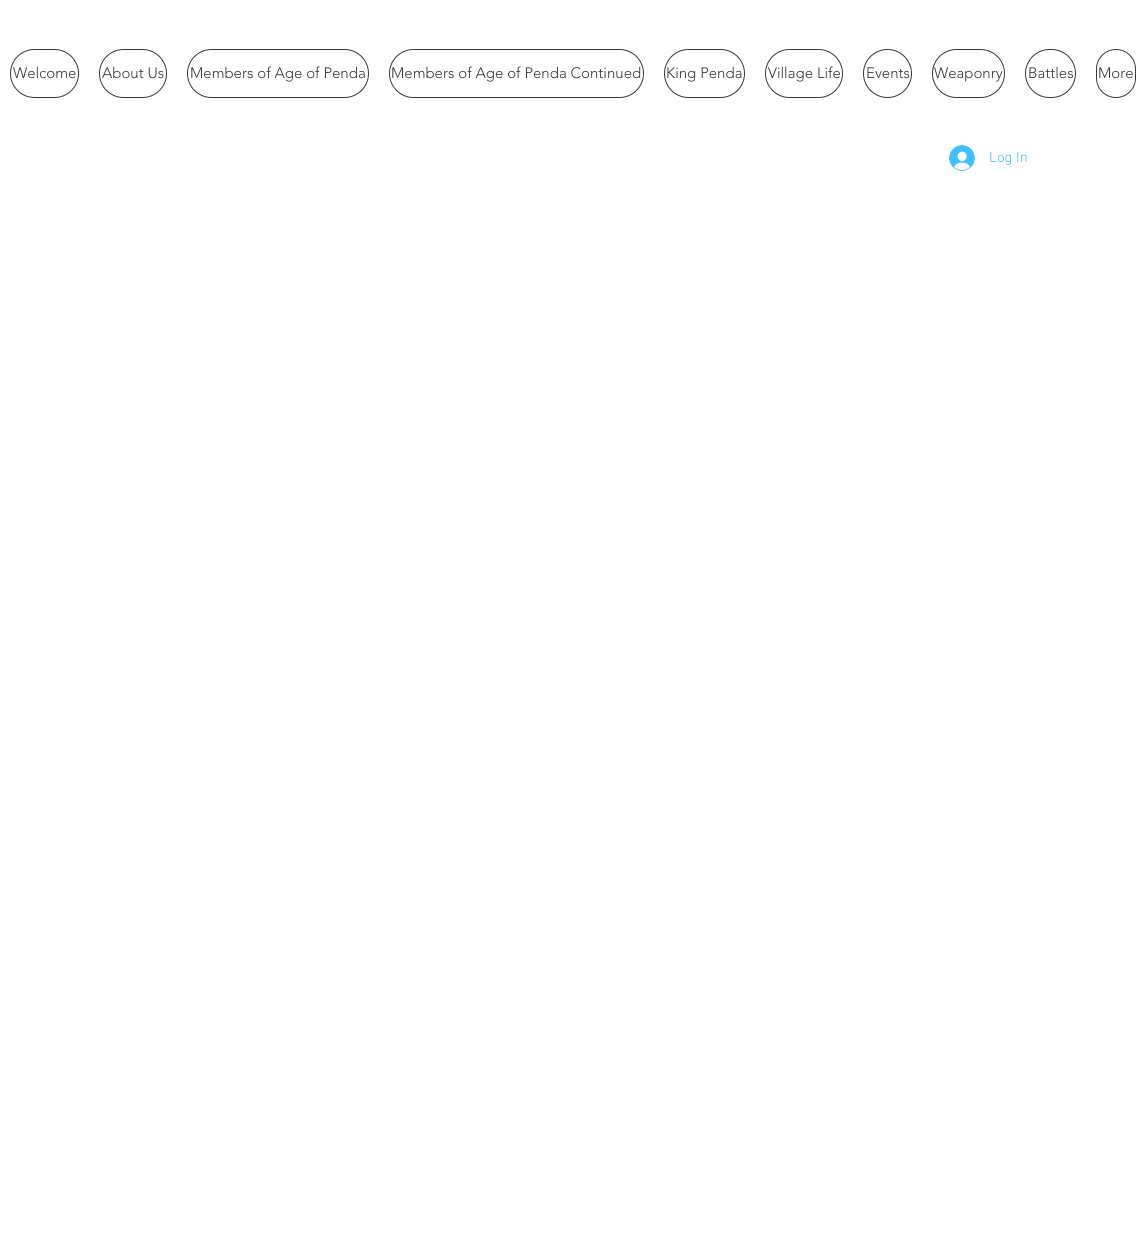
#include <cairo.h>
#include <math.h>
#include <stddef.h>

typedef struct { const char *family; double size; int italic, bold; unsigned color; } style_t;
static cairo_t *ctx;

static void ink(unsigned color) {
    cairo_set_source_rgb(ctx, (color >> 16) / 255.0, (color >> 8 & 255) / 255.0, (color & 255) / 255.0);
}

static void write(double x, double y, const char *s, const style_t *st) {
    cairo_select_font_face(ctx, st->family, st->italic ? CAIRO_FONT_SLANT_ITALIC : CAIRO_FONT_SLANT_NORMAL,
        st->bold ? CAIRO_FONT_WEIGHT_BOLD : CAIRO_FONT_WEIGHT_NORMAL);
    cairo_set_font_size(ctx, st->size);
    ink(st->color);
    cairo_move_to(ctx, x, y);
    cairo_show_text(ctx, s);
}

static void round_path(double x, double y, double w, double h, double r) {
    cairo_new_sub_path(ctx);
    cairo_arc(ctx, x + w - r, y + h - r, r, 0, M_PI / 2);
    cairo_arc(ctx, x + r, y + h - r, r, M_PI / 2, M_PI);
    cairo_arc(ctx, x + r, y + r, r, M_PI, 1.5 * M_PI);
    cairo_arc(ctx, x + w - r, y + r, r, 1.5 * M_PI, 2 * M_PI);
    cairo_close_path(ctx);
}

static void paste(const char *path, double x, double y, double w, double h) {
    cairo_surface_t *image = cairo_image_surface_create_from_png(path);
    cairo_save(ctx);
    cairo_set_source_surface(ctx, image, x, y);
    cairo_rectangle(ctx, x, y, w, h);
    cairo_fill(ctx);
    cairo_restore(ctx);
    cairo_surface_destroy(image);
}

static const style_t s1 = {"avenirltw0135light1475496 Light", 15, 0, 0, 0x383838};
static const style_t s2 = {"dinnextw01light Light", 15, 0, 0, 0x41bfff};

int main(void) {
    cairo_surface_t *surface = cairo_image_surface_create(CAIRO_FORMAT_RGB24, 1146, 1260);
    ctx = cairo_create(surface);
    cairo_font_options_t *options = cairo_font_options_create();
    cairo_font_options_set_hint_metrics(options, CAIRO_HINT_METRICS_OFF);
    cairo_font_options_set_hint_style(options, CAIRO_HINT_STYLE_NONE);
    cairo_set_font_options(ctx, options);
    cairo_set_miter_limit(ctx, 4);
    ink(0xffffff);
    cairo_paint(ctx);
    round_path(10.5, 49.5, 68, 48, 24);
    ink(0x383838);
    cairo_set_line_width(ctx, 1);
    cairo_stroke(ctx);
    write(13, 78, "Welcome", &s1);
    round_path(99.5, 49.5, 67, 48, 24);
    cairo_stroke(ctx);
    write(102, 78, "About Us", &s1);
    round_path(187.5, 49.5, 181, 48, 24);
    cairo_stroke(ctx);
    write(190, 78, "Members of Age of Penda", &s1);
    round_path(389.5, 49.5, 254, 48, 24);
    cairo_stroke(ctx);
    write(391, 78, "Members of Age of Penda Continued", &s1);
    round_path(664.5, 49.5, 80, 48, 24);
    cairo_stroke(ctx);
    write(666, 78, "King Penda", &s1);
    round_path(765.5, 49.5, 77, 48, 24);
    cairo_stroke(ctx);
    write(768, 78, "Village Life", &s1);
    cairo_new_path(ctx);
    cairo_arc(ctx, 887.5, 73.5, 24, 0, 2 * M_PI);
    cairo_stroke(ctx);
    write(866, 78, "Events", &s1);
    round_path(932.5, 49.5, 72, 48, 24);
    cairo_stroke(ctx);
    write(934, 78, "Weaponry", &s1);
    round_path(1025.5, 49.5, 50, 48, 24);
    cairo_stroke(ctx);
    write(1028, 78, "Battles", &s1);
    round_path(1096.5, 49.5, 39, 48, 19.5);
    cairo_stroke(ctx);
    write(1098, 78, "More", &s1);
    paste("pic1.png", 949, 145, 26, 26);
    write(989, 162, "Log In", &s2);
    cairo_surface_write_to_png(surface, "screenshot.png");
    cairo_font_options_destroy(options);
    cairo_destroy(ctx);
    cairo_surface_destroy(surface);
    return 0;
}
